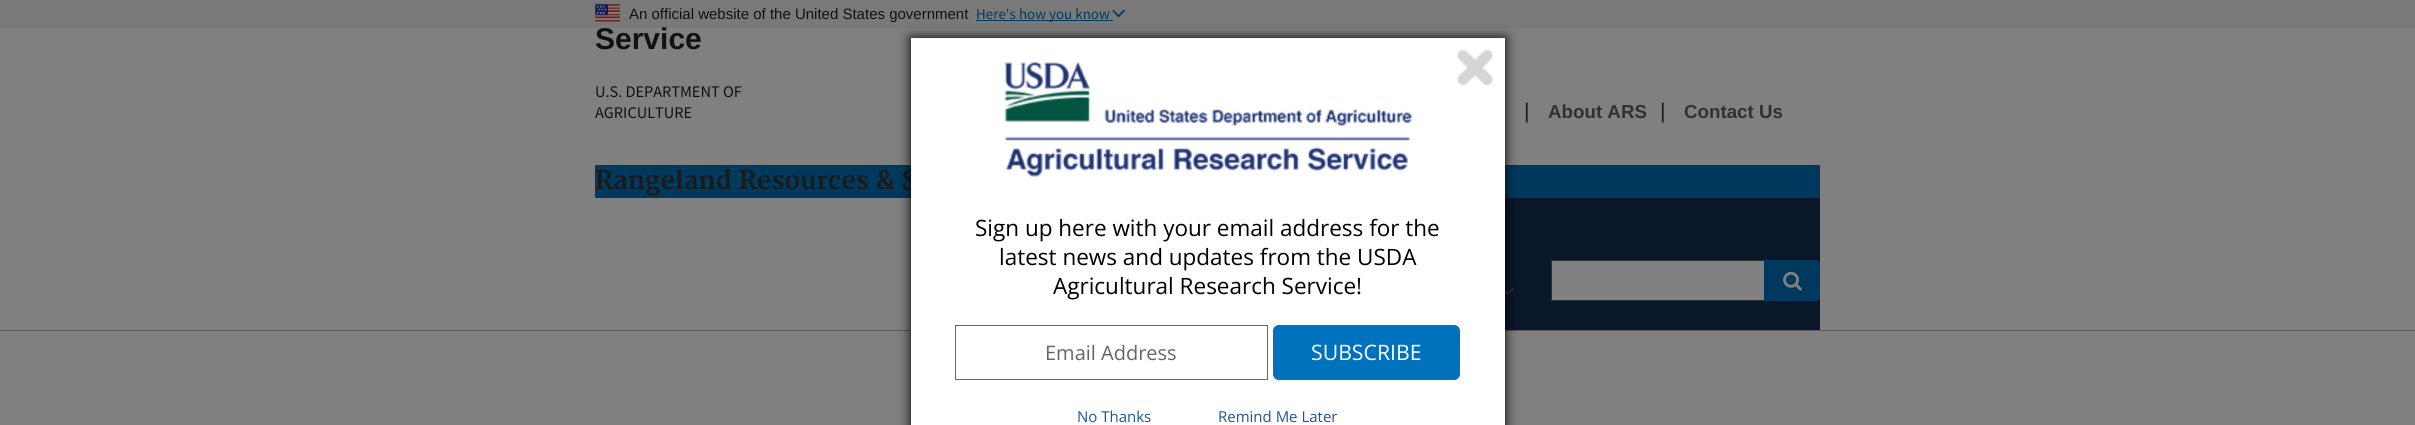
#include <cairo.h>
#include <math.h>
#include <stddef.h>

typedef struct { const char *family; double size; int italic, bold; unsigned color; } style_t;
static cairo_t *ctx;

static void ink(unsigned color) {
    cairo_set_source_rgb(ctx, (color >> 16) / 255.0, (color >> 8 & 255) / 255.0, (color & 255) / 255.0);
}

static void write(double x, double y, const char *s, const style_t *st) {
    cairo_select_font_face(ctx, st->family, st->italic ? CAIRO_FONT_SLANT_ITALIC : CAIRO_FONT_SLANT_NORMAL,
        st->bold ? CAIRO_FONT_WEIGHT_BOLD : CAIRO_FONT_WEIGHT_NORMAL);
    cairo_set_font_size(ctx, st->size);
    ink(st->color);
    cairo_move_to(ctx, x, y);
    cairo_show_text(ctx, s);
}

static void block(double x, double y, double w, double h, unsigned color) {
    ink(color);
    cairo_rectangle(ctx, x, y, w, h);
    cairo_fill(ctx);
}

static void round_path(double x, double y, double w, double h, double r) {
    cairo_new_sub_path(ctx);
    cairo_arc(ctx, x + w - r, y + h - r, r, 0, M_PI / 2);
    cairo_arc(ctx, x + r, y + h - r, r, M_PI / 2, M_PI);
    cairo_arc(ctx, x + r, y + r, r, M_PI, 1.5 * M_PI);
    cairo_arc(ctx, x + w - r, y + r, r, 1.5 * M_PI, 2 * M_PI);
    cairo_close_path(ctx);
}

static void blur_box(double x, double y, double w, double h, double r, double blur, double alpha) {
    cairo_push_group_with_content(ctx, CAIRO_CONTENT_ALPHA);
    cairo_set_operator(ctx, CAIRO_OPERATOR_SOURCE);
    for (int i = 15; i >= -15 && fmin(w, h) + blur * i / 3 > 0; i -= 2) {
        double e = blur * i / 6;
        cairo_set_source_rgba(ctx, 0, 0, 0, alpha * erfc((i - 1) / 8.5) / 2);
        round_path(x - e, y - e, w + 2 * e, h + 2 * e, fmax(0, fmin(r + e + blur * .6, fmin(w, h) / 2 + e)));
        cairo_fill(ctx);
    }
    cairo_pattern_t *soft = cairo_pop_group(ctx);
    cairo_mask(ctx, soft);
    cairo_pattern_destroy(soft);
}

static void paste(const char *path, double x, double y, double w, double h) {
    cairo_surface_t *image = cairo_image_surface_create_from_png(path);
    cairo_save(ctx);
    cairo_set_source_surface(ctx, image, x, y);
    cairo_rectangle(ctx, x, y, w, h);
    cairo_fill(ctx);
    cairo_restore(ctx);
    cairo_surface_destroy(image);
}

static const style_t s1 = {"Liberation Sans", 15, 0, 0, 0x111111};
static const style_t s2 = {"Source Sans Pro", 15, 0, 0, 0x00395e};
static const style_t s3 = {"Liberation Sans", 30, 0, 1, 0x111111};
static const style_t s4 = {"Source Sans Pro", 16.25, 0, 0, 0x111111};
static const style_t s5 = {"Liberation Sans", 21.25, 0, 0, 0x1a1a1a};
static const style_t s6 = {"Liberation Sans", 18.75, 0, 1, 0x2e3136};
static const style_t s7 = {"Merriweather", 25, 0, 1, 0x1a1a1a};
static const style_t s8 = {"Open Sans", 22.5, 0, 0, 0x000000};
static const style_t s9 = {"Open Sans", 20, 0, 0, 0x666666};
static const style_t s10 = {"Open Sans", 21.25, 0, 0, 0xffffff};
static const style_t s11 = {"Open Sans", 15, 0, 0, 0x205493};

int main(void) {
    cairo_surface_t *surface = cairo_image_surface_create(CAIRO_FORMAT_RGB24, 2415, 425);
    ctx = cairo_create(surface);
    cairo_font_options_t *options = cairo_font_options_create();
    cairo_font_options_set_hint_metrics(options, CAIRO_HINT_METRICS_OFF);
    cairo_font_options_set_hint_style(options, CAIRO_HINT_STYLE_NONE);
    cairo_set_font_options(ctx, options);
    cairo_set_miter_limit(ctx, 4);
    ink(0x808080);
    cairo_paint(ctx);
    block(0, 330, 2415, 1, 0x57585b);
    block(0, 0, 2415, 28, 0x797979);
    paste("pic1.png", 595, 3, 25, 19);
    write(629, 19, "An official website of the United States government", &s1);
    block(976, 20, 137, 1, 0x00395e);
    write(976, 19, "Here's how you know", &s2);
    paste("pic2.png", 1112, 9, 13, 9);
    write(595, 49, "Service", &s3);
    write(595, 97, "U.S. DEPARTMENT OF", &s4);
    write(595, 118, "AGRICULTURE", &s4);
    block(1505, 198, 315, 132, 0x091729);
    write(1524, 118, "|", &s5);
    write(1548, 118, "About ARS", &s6);
    write(1660, 118, "|", &s5);
    write(1684, 118, "Contact Us", &s6);
    paste("pic3.png", 1505, 287, 9, 8);
    block(1552, 261, 212, 39, 0x808080);
    block(1551, 260, 213, 1, 0x2e3136);
    block(1551, 300, 213, 1, 0x2e3136);
    block(1551, 260, 1, 41, 0x2e3136);
    ink(0x00395e);
    cairo_new_path(ctx);
    cairo_move_to(ctx, 1764, 260);
    cairo_line_to(ctx, 1816, 260);
    cairo_curve_to(ctx, 1818, 260, 1820, 262, 1820, 264);
    cairo_line_to(ctx, 1820, 297);
    cairo_curve_to(ctx, 1820, 299, 1818, 301, 1816, 301);
    cairo_line_to(ctx, 1764, 301);
    cairo_close_path(ctx);
    cairo_fill(ctx);
    paste("pic4.png", 1783, 271, 19, 20);
    block(595, 165, 1225, 33, 0x00395e);
    write(595, 189, "Rangeland Resources & S", &s7);
    ink(0x000000);
    blur_box(911, 38, 594, 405, 0, 6, 1);
    block(911, 38, 594, 387, 0xffffff);
    paste("pic5.png", 1004, 61, 408, 116);
    paste("pic6.png", 1457, 49, 36, 37);
    write(975, 236, "Sign up here with your email address for the", &s8);
    write(999, 265, "latest news and updates from the USDA", &s8);
    write(1053, 294, "Agricultural Research Service!", &s8);
    cairo_rectangle(ctx, 955.5, 325.5, 312, 54);
    ink(0x666666);
    cairo_set_line_width(ctx, 1);
    cairo_stroke(ctx);
    write(1045, 360, "Email Address", &s9);
    ink(0x0071bc);
    round_path(1273.5, 325.5, 186, 54, 5.5);
    cairo_fill_preserve(ctx);
    cairo_stroke(ctx);
    write(1311, 360, "SUBSCRIBE", &s10);
    write(1077, 422, "No Thanks", &s11);
    write(1218, 422, "Remind Me Later", &s11);
    cairo_surface_write_to_png(surface, "screenshot.png");
    cairo_font_options_destroy(options);
    cairo_destroy(ctx);
    cairo_surface_destroy(surface);
    return 0;
}
